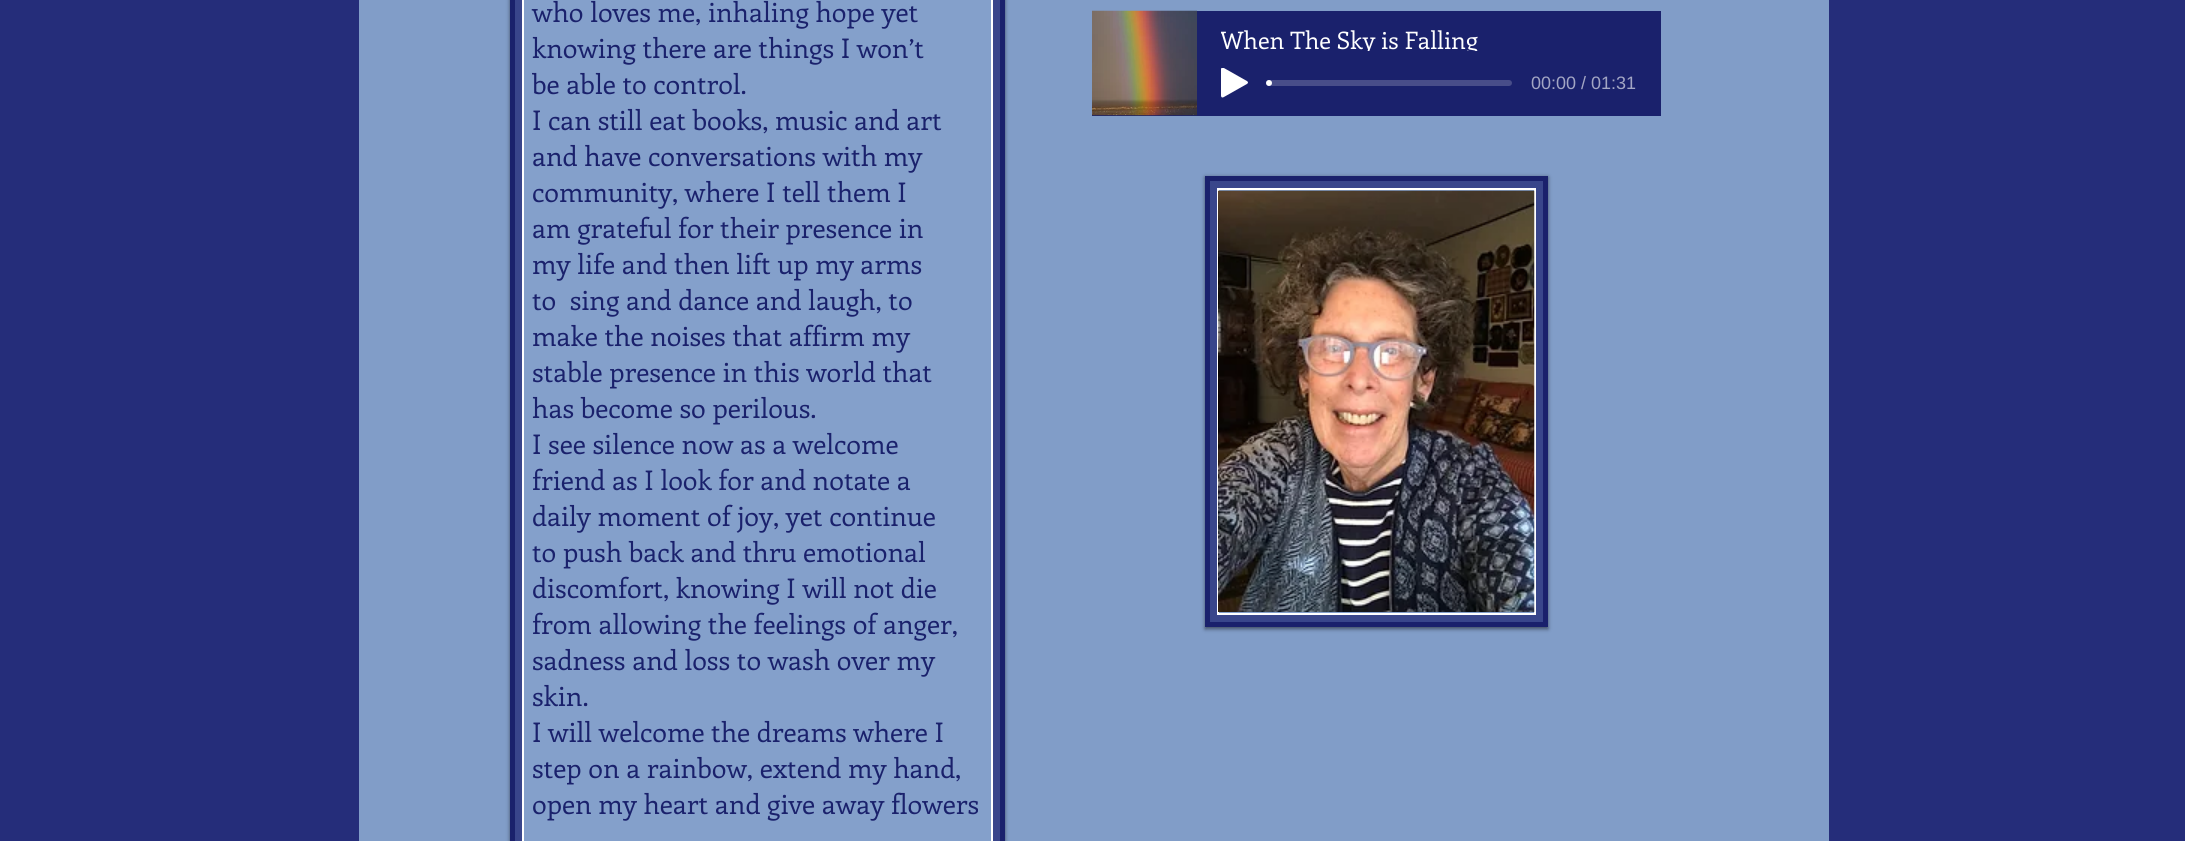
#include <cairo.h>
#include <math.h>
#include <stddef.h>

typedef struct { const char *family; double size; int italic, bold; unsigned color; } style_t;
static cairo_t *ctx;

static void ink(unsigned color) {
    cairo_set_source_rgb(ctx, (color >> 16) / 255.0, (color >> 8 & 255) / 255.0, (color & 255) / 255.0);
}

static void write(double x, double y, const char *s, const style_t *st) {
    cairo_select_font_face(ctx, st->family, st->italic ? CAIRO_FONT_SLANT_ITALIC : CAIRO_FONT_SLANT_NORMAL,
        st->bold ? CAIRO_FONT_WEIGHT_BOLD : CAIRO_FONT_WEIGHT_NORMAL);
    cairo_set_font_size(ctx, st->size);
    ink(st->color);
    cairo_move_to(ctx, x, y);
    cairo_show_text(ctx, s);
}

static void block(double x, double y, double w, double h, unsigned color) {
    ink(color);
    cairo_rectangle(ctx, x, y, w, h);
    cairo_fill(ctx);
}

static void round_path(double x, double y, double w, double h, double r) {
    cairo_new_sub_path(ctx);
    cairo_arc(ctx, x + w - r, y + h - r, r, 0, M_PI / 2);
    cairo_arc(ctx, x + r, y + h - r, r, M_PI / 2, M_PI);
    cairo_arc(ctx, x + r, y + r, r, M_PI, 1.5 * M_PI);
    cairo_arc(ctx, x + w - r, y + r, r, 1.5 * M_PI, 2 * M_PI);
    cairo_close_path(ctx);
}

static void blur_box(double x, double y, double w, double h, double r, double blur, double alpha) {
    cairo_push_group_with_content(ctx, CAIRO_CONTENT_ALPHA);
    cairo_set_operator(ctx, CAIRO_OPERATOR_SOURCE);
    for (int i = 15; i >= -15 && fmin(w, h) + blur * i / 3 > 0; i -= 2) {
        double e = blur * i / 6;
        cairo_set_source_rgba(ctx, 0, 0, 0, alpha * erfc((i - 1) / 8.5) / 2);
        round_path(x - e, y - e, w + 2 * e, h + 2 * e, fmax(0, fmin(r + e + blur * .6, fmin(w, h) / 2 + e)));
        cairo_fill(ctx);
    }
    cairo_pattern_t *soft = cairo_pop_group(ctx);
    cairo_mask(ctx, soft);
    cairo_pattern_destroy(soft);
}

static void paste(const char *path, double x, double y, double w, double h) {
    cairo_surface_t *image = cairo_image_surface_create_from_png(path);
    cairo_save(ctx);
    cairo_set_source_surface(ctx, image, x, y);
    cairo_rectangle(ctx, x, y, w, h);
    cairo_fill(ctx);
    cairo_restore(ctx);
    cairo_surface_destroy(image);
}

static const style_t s1 = {"Enriqueta", 27, 0, 0, 0x1a216c};
static const style_t s2 = {"Enriqueta", 24, 0, 0, 0xffffff};
static const style_t s3 = {"Liberation Sans", 18, 0, 0, 0xa3a6c4};

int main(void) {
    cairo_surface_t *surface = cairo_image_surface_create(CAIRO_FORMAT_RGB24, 2185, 841);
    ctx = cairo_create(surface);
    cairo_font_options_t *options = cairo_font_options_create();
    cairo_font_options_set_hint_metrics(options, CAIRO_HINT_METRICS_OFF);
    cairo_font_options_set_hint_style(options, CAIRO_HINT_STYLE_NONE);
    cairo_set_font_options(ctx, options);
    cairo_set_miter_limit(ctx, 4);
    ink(0x252d7a);
    cairo_paint(ctx);
    block(359, 0, 1470, 841, 0x819dc8);
    ink(0x000000);
    blur_box(510, -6, 495, 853, 0, 2, 0.5);
    ink(0x39458b);
    cairo_rectangle(ctx, 512.5, -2.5, 490, 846);
    cairo_fill_preserve(ctx);
    ink(0x1a216c);
    cairo_set_line_width(ctx, 5);
    cairo_stroke(ctx);
    ink(0x84a0cb);
    cairo_rectangle(ctx, 523, -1, 469, 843);
    cairo_fill_preserve(ctx);
    ink(0xffffff);
    cairo_set_line_width(ctx, 2);
    cairo_stroke(ctx);
    write(532, 22, "who loves me, inhaling hope yet", &s1);
    write(532, 58, "knowing there are things I won’t", &s1);
    write(532, 94, "be able to control.", &s1);
    write(532, 130, "I can still eat books, music and art", &s1);
    write(532, 166, "and have conversations with my", &s1);
    write(532, 202, "community, where I tell them I", &s1);
    write(532, 238, "am grateful for their presence in", &s1);
    write(532, 274, "my life and then lift up my arms", &s1);
    write(532, 310, "to  sing and dance and laugh, to", &s1);
    write(532, 346, "make the noises that affirm my", &s1);
    write(532, 382, "stable presence in this world that", &s1);
    write(532, 418, "has become so perilous.", &s1);
    write(532, 454, "I see silence now as a welcome", &s1);
    write(532, 490, "friend as I look for and notate a", &s1);
    write(532, 526, "daily moment of joy, yet continue", &s1);
    write(532, 562, "to push back and thru emotional", &s1);
    write(532, 598, "discomfort, knowing I will not die", &s1);
    write(532, 634, "from allowing the feelings of anger,", &s1);
    write(532, 670, "sadness and loss to wash over my", &s1);
    write(532, 706, "skin.", &s1);
    write(532, 742, "I will welcome the dreams where I", &s1);
    write(532, 778, "step on a rainbow, extend my hand,", &s1);
    write(532, 814, "open my heart and give away flowers", &s1);
    block(1092, 11, 569, 105, 0x1a216c);
    paste("pic1.png", 1092, 10, 105, 106);
    cairo_save(ctx);
    cairo_rectangle(ctx, 1221, 27, 257, 24);
    cairo_clip(ctx);
    write(1220, 49, "When The Sky is Falling", &s2);
    cairo_restore(ctx);
    paste("pic2.png", 1221, 68, 27, 30);
    ink(0x484d89);
    round_path(1269, 80, 243, 6, 3);
    cairo_fill(ctx);
    ink(0xffffff);
    cairo_arc(ctx, 1269, 83, 3, 0, 2 * M_PI);
    cairo_fill(ctx);
    write(1531, 89, "00:00 / 01:31", &s3);
    ink(0x000000);
    blur_box(1205, 177, 343, 452, 0, 2, 0.5);
    ink(0x39468b);
    cairo_rectangle(ctx, 1207.5, 178.5, 338, 446);
    cairo_fill_preserve(ctx);
    ink(0x1a216c);
    cairo_set_line_width(ctx, 5);
    cairo_stroke(ctx);
    ink(0x84a0cb);
    cairo_rectangle(ctx, 1218, 189, 317, 425);
    cairo_fill_preserve(ctx);
    ink(0xffffff);
    cairo_set_line_width(ctx, 2);
    cairo_stroke(ctx);
    paste("pic3.png", 1218, 190, 317, 422);
    cairo_surface_write_to_png(surface, "screenshot.png");
    cairo_font_options_destroy(options);
    cairo_destroy(ctx);
    cairo_surface_destroy(surface);
    return 0;
}
